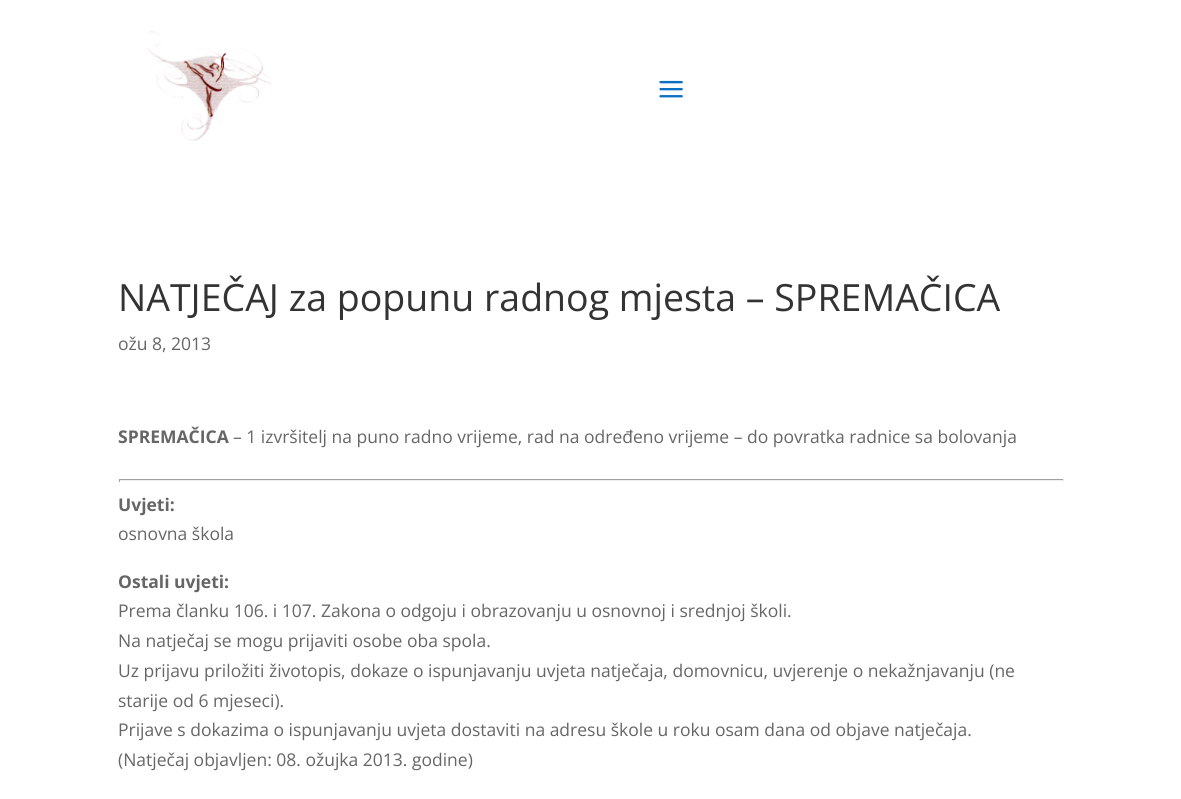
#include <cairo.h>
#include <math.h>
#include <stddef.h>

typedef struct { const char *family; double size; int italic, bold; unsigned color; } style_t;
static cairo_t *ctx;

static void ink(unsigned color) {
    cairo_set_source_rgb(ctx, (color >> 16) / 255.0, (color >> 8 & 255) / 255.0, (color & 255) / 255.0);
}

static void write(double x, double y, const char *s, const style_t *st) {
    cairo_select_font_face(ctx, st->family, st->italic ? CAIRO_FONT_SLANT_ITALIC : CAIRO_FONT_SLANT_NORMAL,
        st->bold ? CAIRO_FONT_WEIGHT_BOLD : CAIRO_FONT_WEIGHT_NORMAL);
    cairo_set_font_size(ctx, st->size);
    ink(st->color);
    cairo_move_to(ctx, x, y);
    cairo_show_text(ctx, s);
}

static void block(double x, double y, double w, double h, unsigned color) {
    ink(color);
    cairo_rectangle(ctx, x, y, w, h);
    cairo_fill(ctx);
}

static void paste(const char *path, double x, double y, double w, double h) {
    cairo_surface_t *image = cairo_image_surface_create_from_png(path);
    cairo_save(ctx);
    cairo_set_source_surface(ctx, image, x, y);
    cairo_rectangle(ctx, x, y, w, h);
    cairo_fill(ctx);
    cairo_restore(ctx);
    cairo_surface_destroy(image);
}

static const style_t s1 = {"Open Sans", 37.5, 0, 0, 0x333333};
static const style_t s2 = {"Open Sans", 17.5, 0, 0, 0x666666};
static const style_t s3 = {"Open Sans", 17.5, 0, 1, 0x666666};

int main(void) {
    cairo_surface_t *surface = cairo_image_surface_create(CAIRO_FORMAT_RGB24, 1181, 799);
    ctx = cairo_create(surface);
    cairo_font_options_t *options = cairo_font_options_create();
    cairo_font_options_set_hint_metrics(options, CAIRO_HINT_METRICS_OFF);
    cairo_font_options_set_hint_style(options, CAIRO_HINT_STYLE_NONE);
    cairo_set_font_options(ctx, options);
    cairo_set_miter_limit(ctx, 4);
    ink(0xffffff);
    cairo_paint(ctx);
    paste("pic1.png", 147, 31, 125, 110);
    paste("pic2.png", 659, 80, 24, 18);
    write(118, 311, "NATJEČAJ za popunu radnog mjesta – SPREMAČICA", &s1);
    write(118, 350, "ožu 8, 2013", &s2);
    write(118, 443, "SPREMAČICA", &s3);
    write(233, 443, "– 1 izvršitelj na puno radno vrijeme, rad na određeno vrijeme – do povratka radnice sa bolovanja", &s2);
    block(119, 479, 945, 1, 0x9f9f9f);
    block(1063, 479, 1, 3, 0xeeeeee);
    block(119, 480, 945, 1, 0xeeeeee);
    block(119, 479, 1, 3, 0x9f9f9f);
    write(118, 511, "Uvjeti:", &s3);
    write(118, 540, "osnovna škola", &s2);
    write(118, 588, "Ostali uvjeti:", &s3);
    write(118, 617, "Prema članku 106. i 107. Zakona o odgoju i obrazovanju u osnovnoj i srednjoj školi.", &s2);
    write(118, 647, "Na natječaj se mogu prijaviti osobe oba spola.", &s2);
    write(118, 677, "Uz prijavu priložiti životopis, dokaze o ispunjavanju uvjeta natječaja, domovnicu, uvjerenje o nekažnjavanju (ne", &s2);
    write(118, 707, "starije od 6 mjeseci).", &s2);
    write(118, 736, "Prijave s dokazima o ispunjavanju uvjeta dostaviti na adresu škole u roku osam dana od objave natječaja.", &s2);
    write(118, 766, "(Natječaj objavljen: 08. ožujka 2013. godine)", &s2);
    cairo_surface_write_to_png(surface, "screenshot.png");
    cairo_font_options_destroy(options);
    cairo_destroy(ctx);
    cairo_surface_destroy(surface);
    return 0;
}
